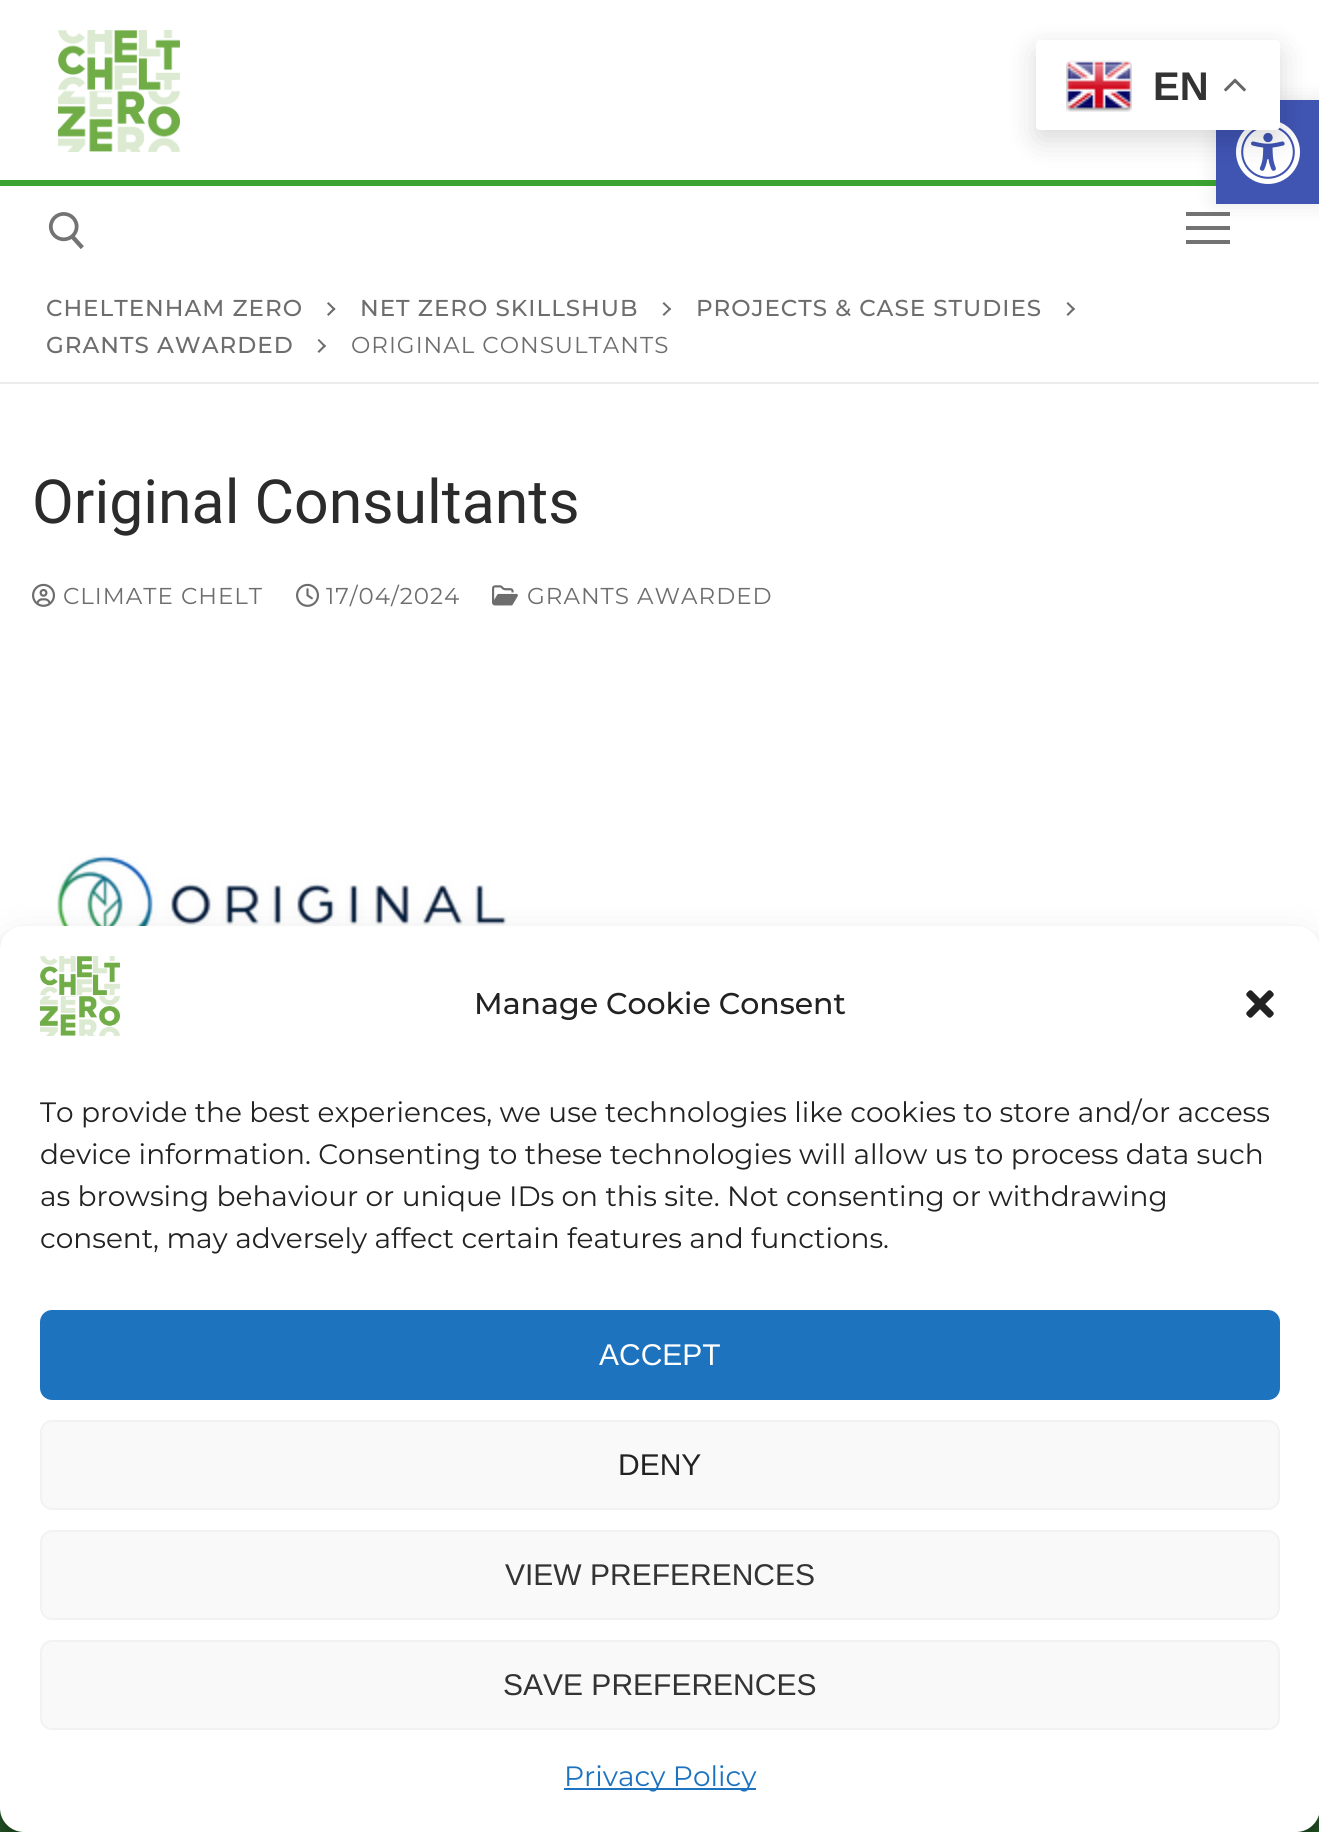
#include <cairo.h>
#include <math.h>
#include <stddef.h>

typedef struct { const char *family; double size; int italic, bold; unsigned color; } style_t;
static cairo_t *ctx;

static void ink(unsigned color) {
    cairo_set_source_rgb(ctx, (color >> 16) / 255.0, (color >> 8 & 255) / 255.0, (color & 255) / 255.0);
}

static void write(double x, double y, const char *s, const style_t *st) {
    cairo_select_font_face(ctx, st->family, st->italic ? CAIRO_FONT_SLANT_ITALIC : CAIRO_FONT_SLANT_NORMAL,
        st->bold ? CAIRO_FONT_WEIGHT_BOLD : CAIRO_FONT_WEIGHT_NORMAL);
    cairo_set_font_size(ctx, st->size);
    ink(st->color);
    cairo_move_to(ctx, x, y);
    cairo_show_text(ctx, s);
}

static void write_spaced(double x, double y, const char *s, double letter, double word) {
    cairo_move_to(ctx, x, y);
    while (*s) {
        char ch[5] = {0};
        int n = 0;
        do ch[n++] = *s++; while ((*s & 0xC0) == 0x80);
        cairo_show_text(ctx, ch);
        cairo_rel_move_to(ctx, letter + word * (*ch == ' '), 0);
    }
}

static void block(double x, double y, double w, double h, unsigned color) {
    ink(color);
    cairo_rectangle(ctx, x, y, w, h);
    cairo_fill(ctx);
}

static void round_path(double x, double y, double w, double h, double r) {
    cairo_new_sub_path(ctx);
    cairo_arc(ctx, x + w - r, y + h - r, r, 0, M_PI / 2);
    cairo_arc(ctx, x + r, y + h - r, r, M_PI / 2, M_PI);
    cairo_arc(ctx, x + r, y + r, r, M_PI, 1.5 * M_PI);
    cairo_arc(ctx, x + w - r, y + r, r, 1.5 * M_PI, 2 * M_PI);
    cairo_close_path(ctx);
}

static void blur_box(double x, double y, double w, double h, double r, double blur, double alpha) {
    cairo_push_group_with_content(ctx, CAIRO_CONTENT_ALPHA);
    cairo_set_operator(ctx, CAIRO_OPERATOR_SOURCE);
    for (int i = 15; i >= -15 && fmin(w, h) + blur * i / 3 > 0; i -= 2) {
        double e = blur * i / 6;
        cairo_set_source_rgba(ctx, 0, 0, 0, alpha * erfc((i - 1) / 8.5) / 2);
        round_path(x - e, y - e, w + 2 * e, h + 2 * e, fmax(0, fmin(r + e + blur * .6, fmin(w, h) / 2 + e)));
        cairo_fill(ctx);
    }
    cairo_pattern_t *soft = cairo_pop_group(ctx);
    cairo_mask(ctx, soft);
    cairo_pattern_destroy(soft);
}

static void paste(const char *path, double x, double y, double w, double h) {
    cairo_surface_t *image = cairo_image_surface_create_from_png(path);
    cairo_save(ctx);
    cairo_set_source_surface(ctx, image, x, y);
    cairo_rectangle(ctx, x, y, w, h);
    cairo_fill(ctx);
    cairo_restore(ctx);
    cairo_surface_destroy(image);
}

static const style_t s1 = {"Liberation Sans", 40, 0, 1, 0x333333};
static const style_t s2 = {"Roboto", 60.75, 0, 0, 0x2b2b2b};
static const style_t s3 = {"Montserrat Medium", 30, 0, 0, 0x222222};
static const style_t s4 = {"Montserrat", 28, 0, 0, 0x222222};
static const style_t s5 = {"Liberation Sans", 30, 0, 0, 0xffffff};
static const style_t s6 = {"Liberation Sans", 30, 0, 0, 0x222222};
static const style_t s7 = {"Liberation Sans", 30, 0, 0, 0x333333};
static const style_t s8 = {"Montserrat", 28, 0, 0, 0x1e73be};

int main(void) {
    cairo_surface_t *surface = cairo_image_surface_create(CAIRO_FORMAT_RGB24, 1319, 1832);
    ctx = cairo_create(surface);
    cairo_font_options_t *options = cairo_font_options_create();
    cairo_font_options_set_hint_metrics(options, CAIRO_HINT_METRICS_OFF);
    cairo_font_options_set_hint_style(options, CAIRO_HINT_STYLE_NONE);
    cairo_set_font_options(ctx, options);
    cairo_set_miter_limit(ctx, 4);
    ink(0xffffff);
    cairo_paint(ctx);
    block(0, 180, 1216, 6, 0x3ba332);
    block(1186, 226, 44, 4, 0x737373);
    block(1186, 212, 44, 4, 0x737373);
    ink(0x000000);
    blur_box(1216, 100, 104, 104, 0, 10, 0.1);
    block(1216, 100, 103, 104, 0x4054b2);
    paste("pic3.png", 1236, 122, 64, 62);
    ink(0x000000);
    blur_box(1036, 50, 244, 90, 4, 15, 0.15);
    ink(0xffffff);
    round_path(1036, 40, 244, 90, 4);
    cairo_fill(ctx);
    paste("pic1.png", 1066, 60, 66, 52);
    write(1153, 100, "EN", &s1);
    paste("pic2.png", 1224, 78, 22, 14);
    paste("pic4.png", 58, 30, 122, 122);
    paste("pic5.png", 48, 212, 36, 37);
    block(1186, 240, 44, 4, 0x737373);
    block(0, 382, 1319, 2, 0xeaecee);
    cairo_select_font_face(ctx, "Montserrat Medium", CAIRO_FONT_SLANT_NORMAL, CAIRO_FONT_WEIGHT_NORMAL);
    cairo_set_font_size(ctx, 23);
    ink(0x6d6d6d);
    write_spaced(46, 316, "CHELTENHAM ZERO", 1, 0);
    cairo_new_path(ctx);
    cairo_move_to(ctx, 335.5, 309);
    cairo_line_to(ctx, 328.5, 316);
    cairo_line_to(ctx, 327, 314.5);
    cairo_line_to(ctx, 334, 307.5);
    cairo_close_path(ctx);
    cairo_fill(ctx);
    cairo_new_path(ctx);
    cairo_move_to(ctx, 335.5, 309);
    cairo_line_to(ctx, 334, 310.5);
    cairo_line_to(ctx, 327, 303.5);
    cairo_line_to(ctx, 328.5, 302);
    cairo_close_path(ctx);
    cairo_fill(ctx);
    write_spaced(360, 316, "NET ZERO SKILLSHUB", 1, 0);
    cairo_new_path(ctx);
    cairo_move_to(ctx, 671, 309);
    cairo_line_to(ctx, 664, 316);
    cairo_line_to(ctx, 662.5, 314.5);
    cairo_line_to(ctx, 670, 307.5);
    cairo_close_path(ctx);
    cairo_fill(ctx);
    cairo_new_path(ctx);
    cairo_move_to(ctx, 671, 309);
    cairo_line_to(ctx, 670, 310.5);
    cairo_line_to(ctx, 662.5, 303.5);
    cairo_line_to(ctx, 664, 302);
    cairo_close_path(ctx);
    cairo_fill(ctx);
    write_spaced(696, 316, "PROJECTS & CASE STUDIES", 1, 0);
    cairo_new_path(ctx);
    cairo_move_to(ctx, 1075, 309);
    cairo_line_to(ctx, 1068, 316);
    cairo_line_to(ctx, 1066.5, 314.5);
    cairo_line_to(ctx, 1073.5, 307.5);
    cairo_close_path(ctx);
    cairo_fill(ctx);
    cairo_new_path(ctx);
    cairo_move_to(ctx, 1075, 309);
    cairo_line_to(ctx, 1073.5, 310.5);
    cairo_line_to(ctx, 1066.5, 303.5);
    cairo_line_to(ctx, 1068, 302);
    cairo_close_path(ctx);
    cairo_fill(ctx);
    write_spaced(46, 353, "GRANTS AWARDED", 1, 0);
    cairo_new_path(ctx);
    cairo_move_to(ctx, 326, 346);
    cairo_line_to(ctx, 319, 353);
    cairo_line_to(ctx, 317.5, 351.5);
    cairo_line_to(ctx, 324.5, 344.5);
    cairo_close_path(ctx);
    cairo_fill(ctx);
    cairo_new_path(ctx);
    cairo_move_to(ctx, 326, 346);
    cairo_line_to(ctx, 324.5, 347.5);
    cairo_line_to(ctx, 317.5, 340);
    cairo_line_to(ctx, 319, 339);
    cairo_close_path(ctx);
    cairo_fill(ctx);
    cairo_select_font_face(ctx, "Montserrat", CAIRO_FONT_SLANT_NORMAL, CAIRO_FONT_WEIGHT_NORMAL);
    write_spaced(351, 353, "ORIGINAL CONSULTANTS", 1, 0);
    write(32, 523, "Original Consultants", &s2);
    paste("pic6.png", 32, 583, 23, 24);
    cairo_select_font_face(ctx, "Montserrat", CAIRO_FONT_SLANT_NORMAL, CAIRO_FONT_WEIGHT_NORMAL);
    cairo_set_font_size(ctx, 23);
    ink(0x6d6d6d);
    write_spaced(63, 604, "CLIMATE CHELT", 1, 0);
    paste("pic7.png", 296, 583, 23, 24);
    write_spaced(326, 604, "17/04/2024", 1, 0);
    paste("pic8.png", 492, 585, 26, 21);
    write_spaced(527, 604, "GRANTS AWARDED", 1, 0);
    paste("pic9.png", 57, 855, 450, 71);
    block(0, 1808, 1319, 24, 0x265928);
    ink(0x000000);
    blur_box(0, 938, 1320, 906, 24, 6, 0.23);
    blur_box(0, 946, 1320, 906, 24, 20, 0.19);
    ink(0xffffff);
    round_path(0, 926, 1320, 906, 24);
    cairo_fill(ctx);
    paste("pic10.png", 40, 956, 80, 80);
    write(474, 1014, "Manage Cookie Consent", &s3);
    paste("pic11.png", 1246, 990, 28, 28);
    write(40, 1122, "To provide the best experiences, we use technologies like cookies to store and/or access", &s4);
    write(40, 1164, "device information. Consenting to these technologies will allow us to process data such", &s4);
    write(40, 1206, "as browsing behaviour or unique IDs on this site. Not consenting or withdrawing", &s4);
    write(40, 1248, "consent, may adversely affect certain features and functions.", &s4);
    ink(0x1e73be);
    round_path(41, 1311, 1238, 88, 11);
    cairo_fill_preserve(ctx);
    cairo_stroke(ctx);
    write(599, 1365, "ACCEPT", &s5);
    ink(0xf9f9f9);
    round_path(41, 1421, 1238, 88, 11);
    cairo_fill_preserve(ctx);
    ink(0xf2f2f2);
    cairo_stroke(ctx);
    write(618, 1475, "DENY", &s6);
    ink(0xf9f9f9);
    round_path(41, 1531, 1238, 88, 11);
    cairo_fill_preserve(ctx);
    ink(0xf2f2f2);
    cairo_stroke(ctx);
    write(505, 1585, "VIEW PREFERENCES", &s7);
    ink(0xf9f9f9);
    round_path(41, 1641, 1238, 88, 11);
    cairo_fill_preserve(ctx);
    ink(0xf2f2f2);
    cairo_stroke(ctx);
    write(503, 1695, "SAVE PREFERENCES", &s7);
    block(564, 1788, 192, 2, 0x1e73be);
    write(564, 1786, "Privacy Policy", &s8);
    cairo_surface_write_to_png(surface, "screenshot.png");
    cairo_font_options_destroy(options);
    cairo_destroy(ctx);
    cairo_surface_destroy(surface);
    return 0;
}
